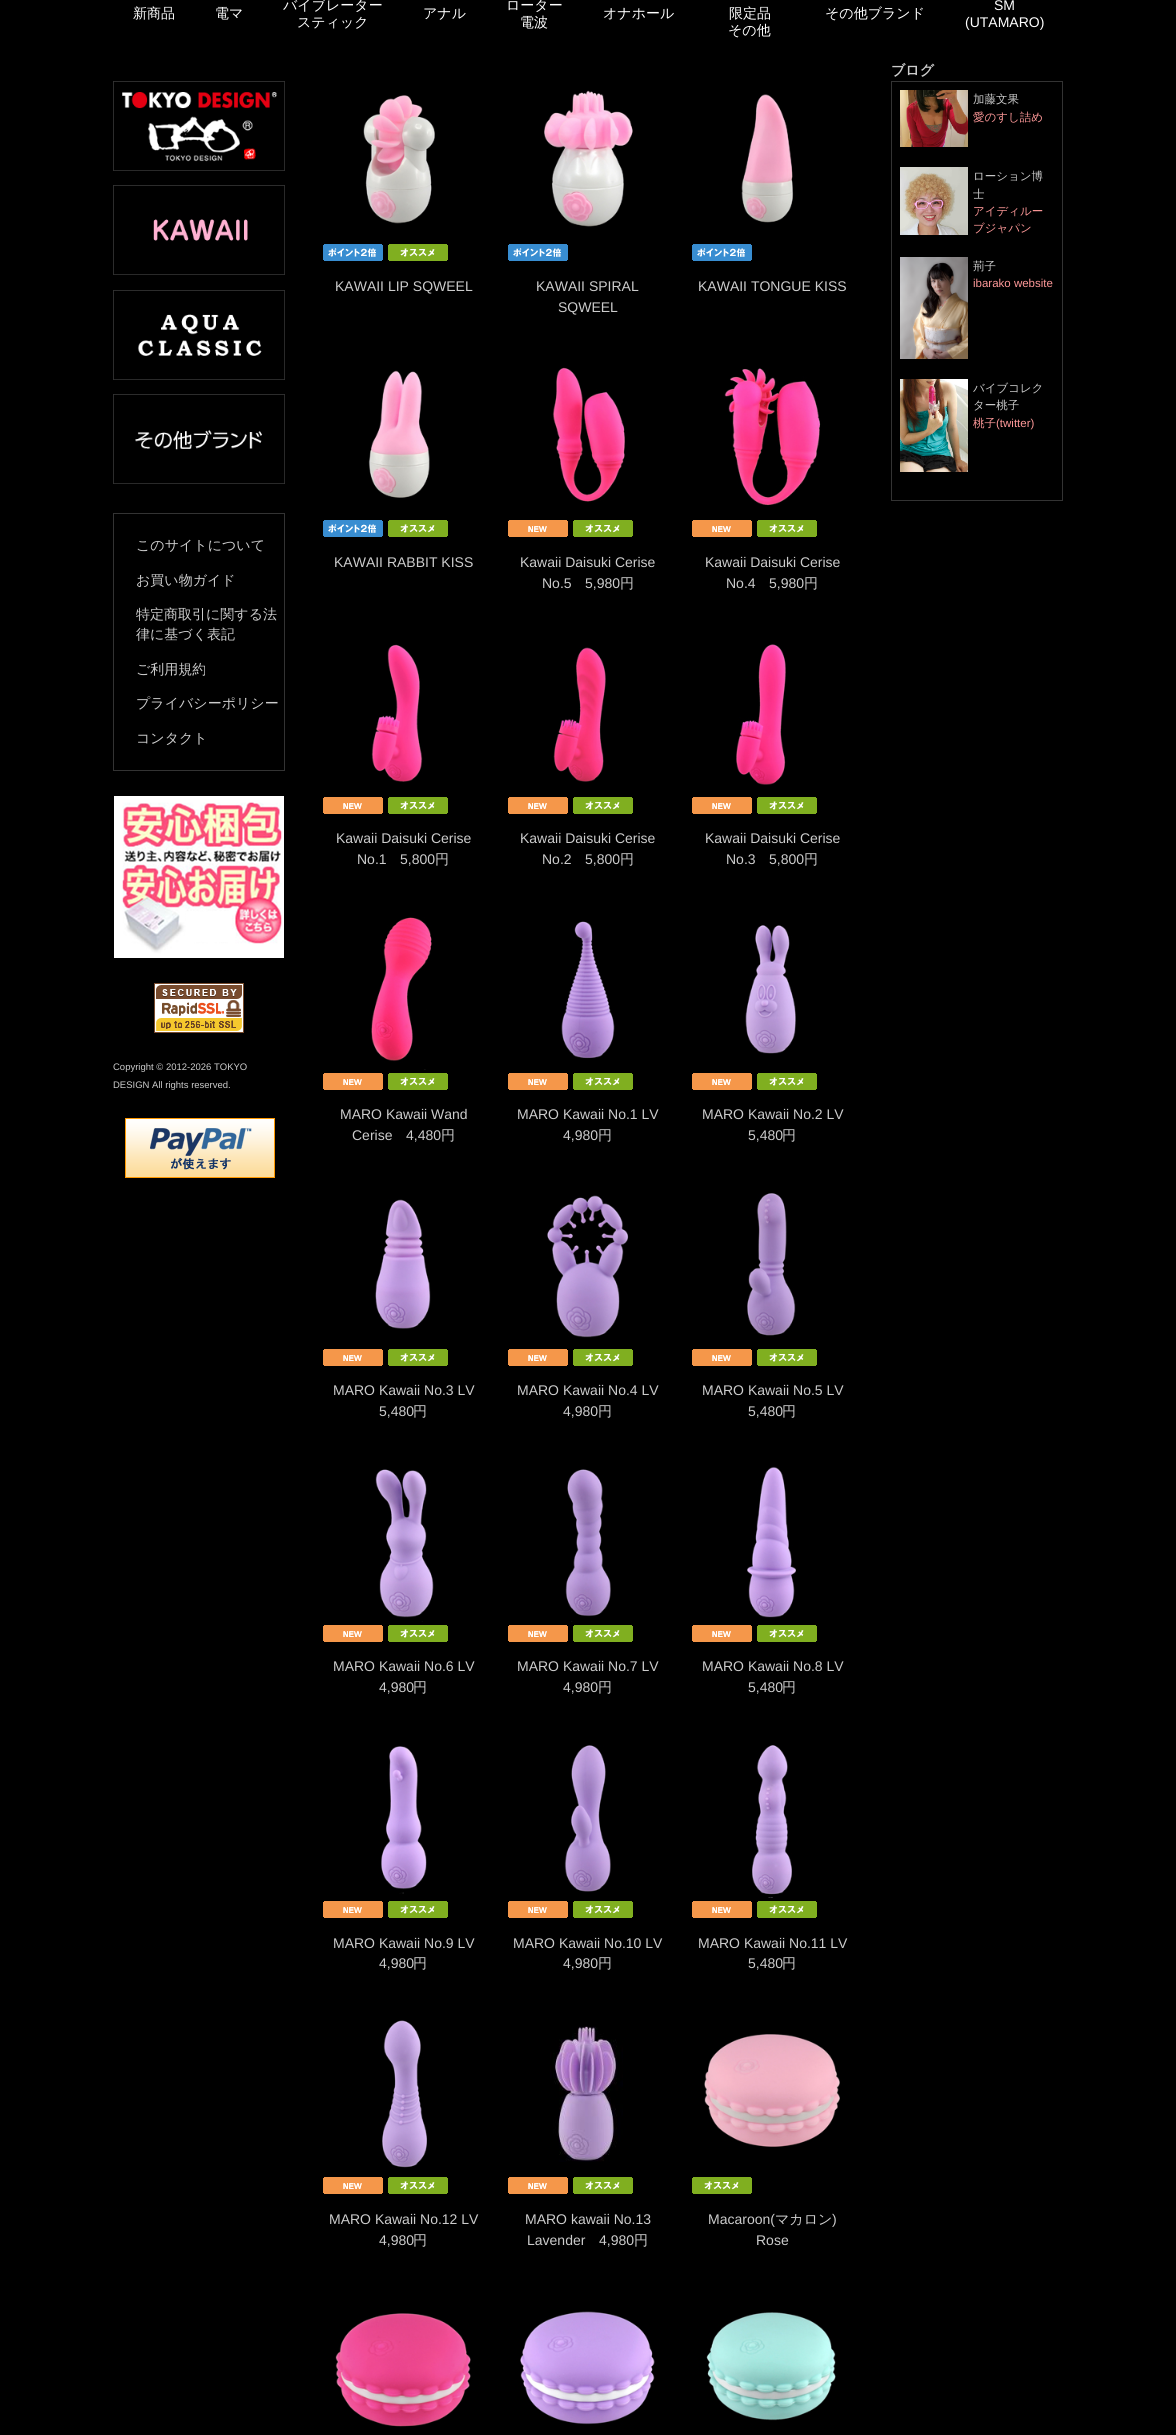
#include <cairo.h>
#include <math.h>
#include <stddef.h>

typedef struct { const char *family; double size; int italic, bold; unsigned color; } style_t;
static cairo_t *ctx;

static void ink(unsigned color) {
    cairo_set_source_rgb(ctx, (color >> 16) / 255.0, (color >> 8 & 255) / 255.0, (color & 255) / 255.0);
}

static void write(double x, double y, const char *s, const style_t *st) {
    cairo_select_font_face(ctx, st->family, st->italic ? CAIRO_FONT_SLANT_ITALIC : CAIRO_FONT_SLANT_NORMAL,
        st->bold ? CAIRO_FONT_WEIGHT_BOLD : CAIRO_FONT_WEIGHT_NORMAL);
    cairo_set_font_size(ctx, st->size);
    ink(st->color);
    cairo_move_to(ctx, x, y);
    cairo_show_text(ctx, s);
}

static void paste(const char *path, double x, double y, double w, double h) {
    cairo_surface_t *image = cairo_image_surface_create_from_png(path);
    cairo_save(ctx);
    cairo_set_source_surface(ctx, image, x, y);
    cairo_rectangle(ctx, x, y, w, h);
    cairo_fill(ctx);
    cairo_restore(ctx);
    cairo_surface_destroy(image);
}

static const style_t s1 = {"WenQuanYi Zen Hei Medium", 14, 0, 0, 0xffffff};
static const style_t s2 = {"Liberation Sans", 14, 0, 0, 0xffffff};
static const style_t s3 = {"WenQuanYi Zen Hei Medium", 14, 0, 0, 0xcccccc};
static const style_t s4 = {"Liberation Sans", 9.5, 0, 0, 0xcccccc};
static const style_t s5 = {"Liberation Sans", 14, 0, 0, 0xcccccc};
static const style_t s6 = {"WenQuanYi Zen Hei", 14, 0, 1, 0xcccccc};
static const style_t s7 = {"WenQuanYi Zen Hei Medium", 11.5, 0, 0, 0xcccccc};
static const style_t s8 = {"WenQuanYi Zen Hei Medium", 11.5, 0, 0, 0xff9999};
static const style_t s9 = {"Liberation Sans", 11.5, 0, 0, 0xff9999};

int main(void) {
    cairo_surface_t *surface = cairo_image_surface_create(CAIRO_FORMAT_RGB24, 1176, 2435);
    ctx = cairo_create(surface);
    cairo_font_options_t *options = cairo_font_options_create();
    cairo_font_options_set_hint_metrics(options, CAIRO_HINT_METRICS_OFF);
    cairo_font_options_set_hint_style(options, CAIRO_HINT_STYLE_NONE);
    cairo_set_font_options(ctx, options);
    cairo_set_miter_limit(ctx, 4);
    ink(0x000000);
    cairo_paint(ctx);
    write(133, 18, "新商品", &s1);
    write(215, 18, "電マ", &s1);
    write(283, 10, "バイブレーター", &s1);
    write(297, 27, "スティック", &s1);
    write(423, 18, "アナル", &s1);
    write(506, 10, "ローター", &s1);
    write(520, 27, "電波", &s1);
    write(603, 18, "オナホール", &s1);
    write(729, 18, "限定品", &s1);
    write(728, 35, "その他", &s1);
    write(825, 18, "その他ブランド", &s1);
    write(994, 10, "SM", &s2);
    write(965, 27, "(UTAMARO)", &s2);
    paste("pic1.png", 113, 81, 172, 90);
    paste("pic2.png", 113, 185, 172, 90);
    paste("pic3.png", 113, 290, 172, 90);
    paste("pic4.png", 113, 394, 172, 90);
    cairo_rectangle(ctx, 113.5, 513.5, 171, 257);
    ink(0x333333);
    cairo_set_line_width(ctx, 1);
    cairo_stroke(ctx);
    write(136, 550, "このサイトについて", &s3);
    write(136, 585, "お買い物ガイド", &s3);
    write(136, 619, "特定商取引に関する法", &s3);
    write(136, 639, "律に基づく表記", &s3);
    write(136, 674, "ご利用規約", &s3);
    write(136, 708, "プライバシーポリシー", &s3);
    write(136, 743, "コンタクト", &s3);
    paste("pic5.png", 114, 796, 170, 162);
    paste("pic6.png", 154, 983, 90, 50);
    write(113, 1070, "Copyright © 2012-2026 TOKYO", &s4);
    write(113, 1088, "DESIGN All rights reserved.", &s4);
    paste("pic7.png", 125, 1118, 150, 60);
    paste("pic8.png", 363, 95, 72, 129);
    paste("pic9.png", 323, 244, 60, 17);
    paste("pic10.png", 388, 244, 60, 17);
    write(335, 291, "KAWAII LIP SQWEEL", &s5);
    paste("pic11.png", 544, 90, 89, 137);
    paste("pic9.png", 508, 244, 60, 17);
    write(536, 291, "KAWAII SPIRAL", &s5);
    write(558, 312, "SQWEEL", &s5);
    paste("pic12.png", 741, 94, 53, 129);
    paste("pic9.png", 692, 244, 60, 17);
    write(698, 291, "KAWAII TONGUE KISS", &s5);
    paste("pic13.png", 368, 370, 62, 128);
    paste("pic9.png", 323, 520, 60, 17);
    paste("pic10.png", 388, 520, 60, 17);
    write(334, 567, "KAWAII RABBIT KISS", &s5);
    paste("pic14.png", 552, 367, 73, 135);
    paste("pic15.png", 508, 520, 60, 17);
    paste("pic10.png", 573, 520, 60, 17);
    write(520, 567, "Kawaii Daisuki Cerise", &s5);
    write(542, 588, "No.5", &s5);
    write(585, 588, "5,980", &s5);
    write(620, 588, "円", &s3);
    paste("pic16.png", 724, 368, 97, 138);
    paste("pic15.png", 692, 520, 60, 17);
    paste("pic10.png", 757, 520, 60, 17);
    write(705, 567, "Kawaii Daisuki Cerise", &s5);
    write(726, 588, "No.4", &s5);
    write(769, 588, "5,980", &s5);
    write(804, 588, "円", &s3);
    paste("pic17.png", 371, 644, 52, 138);
    paste("pic15.png", 323, 797, 60, 17);
    paste("pic10.png", 388, 797, 60, 17);
    write(336, 843, "Kawaii Daisuki Cerise", &s5);
    write(357, 864, "No.1", &s5);
    write(400, 864, "5,800", &s5);
    write(435, 864, "円", &s3);
    paste("pic18.png", 553, 647, 53, 135);
    paste("pic15.png", 508, 797, 60, 17);
    paste("pic10.png", 573, 797, 60, 17);
    write(520, 843, "Kawaii Daisuki Cerise", &s5);
    write(542, 864, "No.2", &s5);
    write(585, 864, "5,800", &s5);
    write(620, 864, "円", &s3);
    paste("pic19.png", 736, 644, 50, 141);
    paste("pic15.png", 692, 797, 60, 17);
    paste("pic10.png", 757, 797, 60, 17);
    write(705, 843, "Kawaii Daisuki Cerise", &s5);
    write(726, 864, "No.3", &s5);
    write(769, 864, "5,800", &s5);
    write(804, 864, "円", &s3);
    paste("pic20.png", 371, 917, 61, 153);
    paste("pic15.png", 323, 1073, 60, 17);
    paste("pic10.png", 388, 1073, 60, 17);
    write(340, 1119, "MARO Kawaii Wand", &s5);
    write(352, 1140, "Cerise", &s5);
    write(406, 1140, "4,480", &s5);
    write(441, 1140, "円", &s3);
    paste("pic21.png", 561, 921, 54, 138);
    paste("pic15.png", 508, 1073, 60, 17);
    paste("pic10.png", 573, 1073, 60, 17);
    write(517, 1119, "MARO Kawaii No.1 LV", &s5);
    write(563, 1140, "4,980", &s5);
    write(598, 1140, "円", &s3);
    paste("pic22.png", 745, 925, 51, 129);
    paste("pic15.png", 692, 1073, 60, 17);
    paste("pic10.png", 757, 1073, 60, 17);
    write(702, 1119, "MARO Kawaii No.2 LV", &s5);
    write(748, 1140, "5,480", &s5);
    write(782, 1140, "円", &s3);
    paste("pic23.png", 375, 1199, 56, 130);
    paste("pic15.png", 323, 1349, 60, 17);
    paste("pic10.png", 388, 1349, 60, 17);
    write(333, 1395, "MARO Kawaii No.3 LV", &s5);
    write(379, 1416, "5,480", &s5);
    write(413, 1416, "円", &s3);
    paste("pic24.png", 547, 1195, 82, 143);
    paste("pic15.png", 508, 1349, 60, 17);
    paste("pic10.png", 573, 1349, 60, 17);
    write(517, 1395, "MARO Kawaii No.4 LV", &s5);
    write(563, 1416, "4,980", &s5);
    write(598, 1416, "円", &s3);
    paste("pic25.png", 747, 1193, 49, 143);
    paste("pic15.png", 692, 1349, 60, 17);
    paste("pic10.png", 757, 1349, 60, 17);
    write(702, 1395, "MARO Kawaii No.5 LV", &s5);
    write(748, 1416, "5,480", &s5);
    write(782, 1416, "円", &s3);
    paste("pic26.png", 375, 1469, 59, 153);
    paste("pic15.png", 323, 1625, 60, 17);
    paste("pic10.png", 388, 1625, 60, 17);
    write(333, 1671, "MARO Kawaii No.6 LV", &s5);
    write(379, 1692, "4,980", &s5);
    write(413, 1692, "円", &s3);
    paste("pic27.png", 565, 1469, 46, 153);
    paste("pic15.png", 508, 1625, 60, 17);
    paste("pic10.png", 573, 1625, 60, 17);
    write(517, 1671, "MARO Kawaii No.7 LV", &s5);
    write(563, 1692, "4,980", &s5);
    write(598, 1692, "円", &s3);
    paste("pic28.png", 747, 1466, 49, 152);
    paste("pic15.png", 692, 1625, 60, 17);
    paste("pic10.png", 757, 1625, 60, 17);
    write(702, 1671, "MARO Kawaii No.8 LV", &s5);
    write(748, 1692, "5,480", &s5);
    write(782, 1692, "円", &s3);
    paste("pic29.png", 381, 1746, 46, 148);
    paste("pic15.png", 323, 1901, 60, 17);
    paste("pic10.png", 388, 1901, 60, 17);
    write(333, 1948, "MARO Kawaii No.9 LV", &s5);
    write(379, 1968, "4,980", &s5);
    write(413, 1968, "円", &s3);
    paste("pic30.png", 564, 1745, 47, 147);
    paste("pic15.png", 508, 1901, 60, 17);
    paste("pic10.png", 573, 1901, 60, 17);
    write(513, 1948, "MARO Kawaii No.10 LV", &s5);
    write(563, 1968, "4,980", &s5);
    write(598, 1968, "円", &s3);
    paste("pic31.png", 752, 1745, 40, 153);
    paste("pic15.png", 692, 1901, 60, 17);
    paste("pic10.png", 757, 1901, 60, 17);
    write(698, 1948, "MARO Kawaii No.11 LV", &s5);
    write(748, 1968, "5,480", &s5);
    write(782, 1968, "円", &s3);
    paste("pic32.png", 382, 2020, 45, 148);
    paste("pic15.png", 323, 2177, 60, 17);
    paste("pic10.png", 388, 2177, 60, 17);
    write(329, 2224, "MARO Kawaii No.12 LV", &s5);
    write(379, 2245, "4,980", &s5);
    write(413, 2245, "円", &s3);
    paste("pic33.png", 550, 2026, 73, 136);
    paste("pic15.png", 508, 2177, 60, 17);
    paste("pic10.png", 573, 2177, 60, 17);
    write(525, 2224, "MARO kawaii No.13", &s5);
    write(527, 2245, "Lavender", &s5);
    write(599, 2245, "4,980", &s5);
    write(634, 2245, "円", &s3);
    paste("pic34.png", 704, 2034, 136, 113);
    paste("pic10.png", 692, 2177, 60, 17);
    write(708, 2224, "Macaroon(", &s5);
    write(775, 2224, "マカロン", &s3);
    write(832, 2224, ")", &s5);
    write(756, 2245, "Rose", &s5);
    paste("pic35.png", 335, 2313, 136, 114);
    paste("pic36.png", 520, 2311, 135, 114);
    paste("pic37.png", 706, 2312, 130, 109);
    write(891, 75, "ブログ", &s6);
    cairo_rectangle(ctx, 891.5, 81.5, 171, 419);
    ink(0x333333);
    cairo_stroke(ctx);
    paste("pic38.png", 900, 90, 68, 57);
    write(973, 103, "加藤文果", &s7);
    write(973, 121, "愛のすし詰め", &s8);
    paste("pic39.png", 900, 167, 68, 68);
    write(973, 180, "ローション博", &s7);
    write(973, 198, "士", &s7);
    write(973, 215, "アイディルー", &s8);
    write(973, 232, "ブジャパン", &s8);
    paste("pic40.png", 900, 257, 68, 102);
    write(973, 270, "荊子", &s7);
    write(973, 287, "ibarako website", &s9);
    paste("pic41.png", 900, 379, 68, 93);
    write(973, 392, "バイブコレク", &s7);
    write(973, 409, "ター桃子", &s7);
    write(973, 427, "桃子", &s8);
    write(996, 427, "(twitter)", &s9);
    cairo_surface_write_to_png(surface, "screenshot.png");
    cairo_font_options_destroy(options);
    cairo_destroy(ctx);
    cairo_surface_destroy(surface);
    return 0;
}
